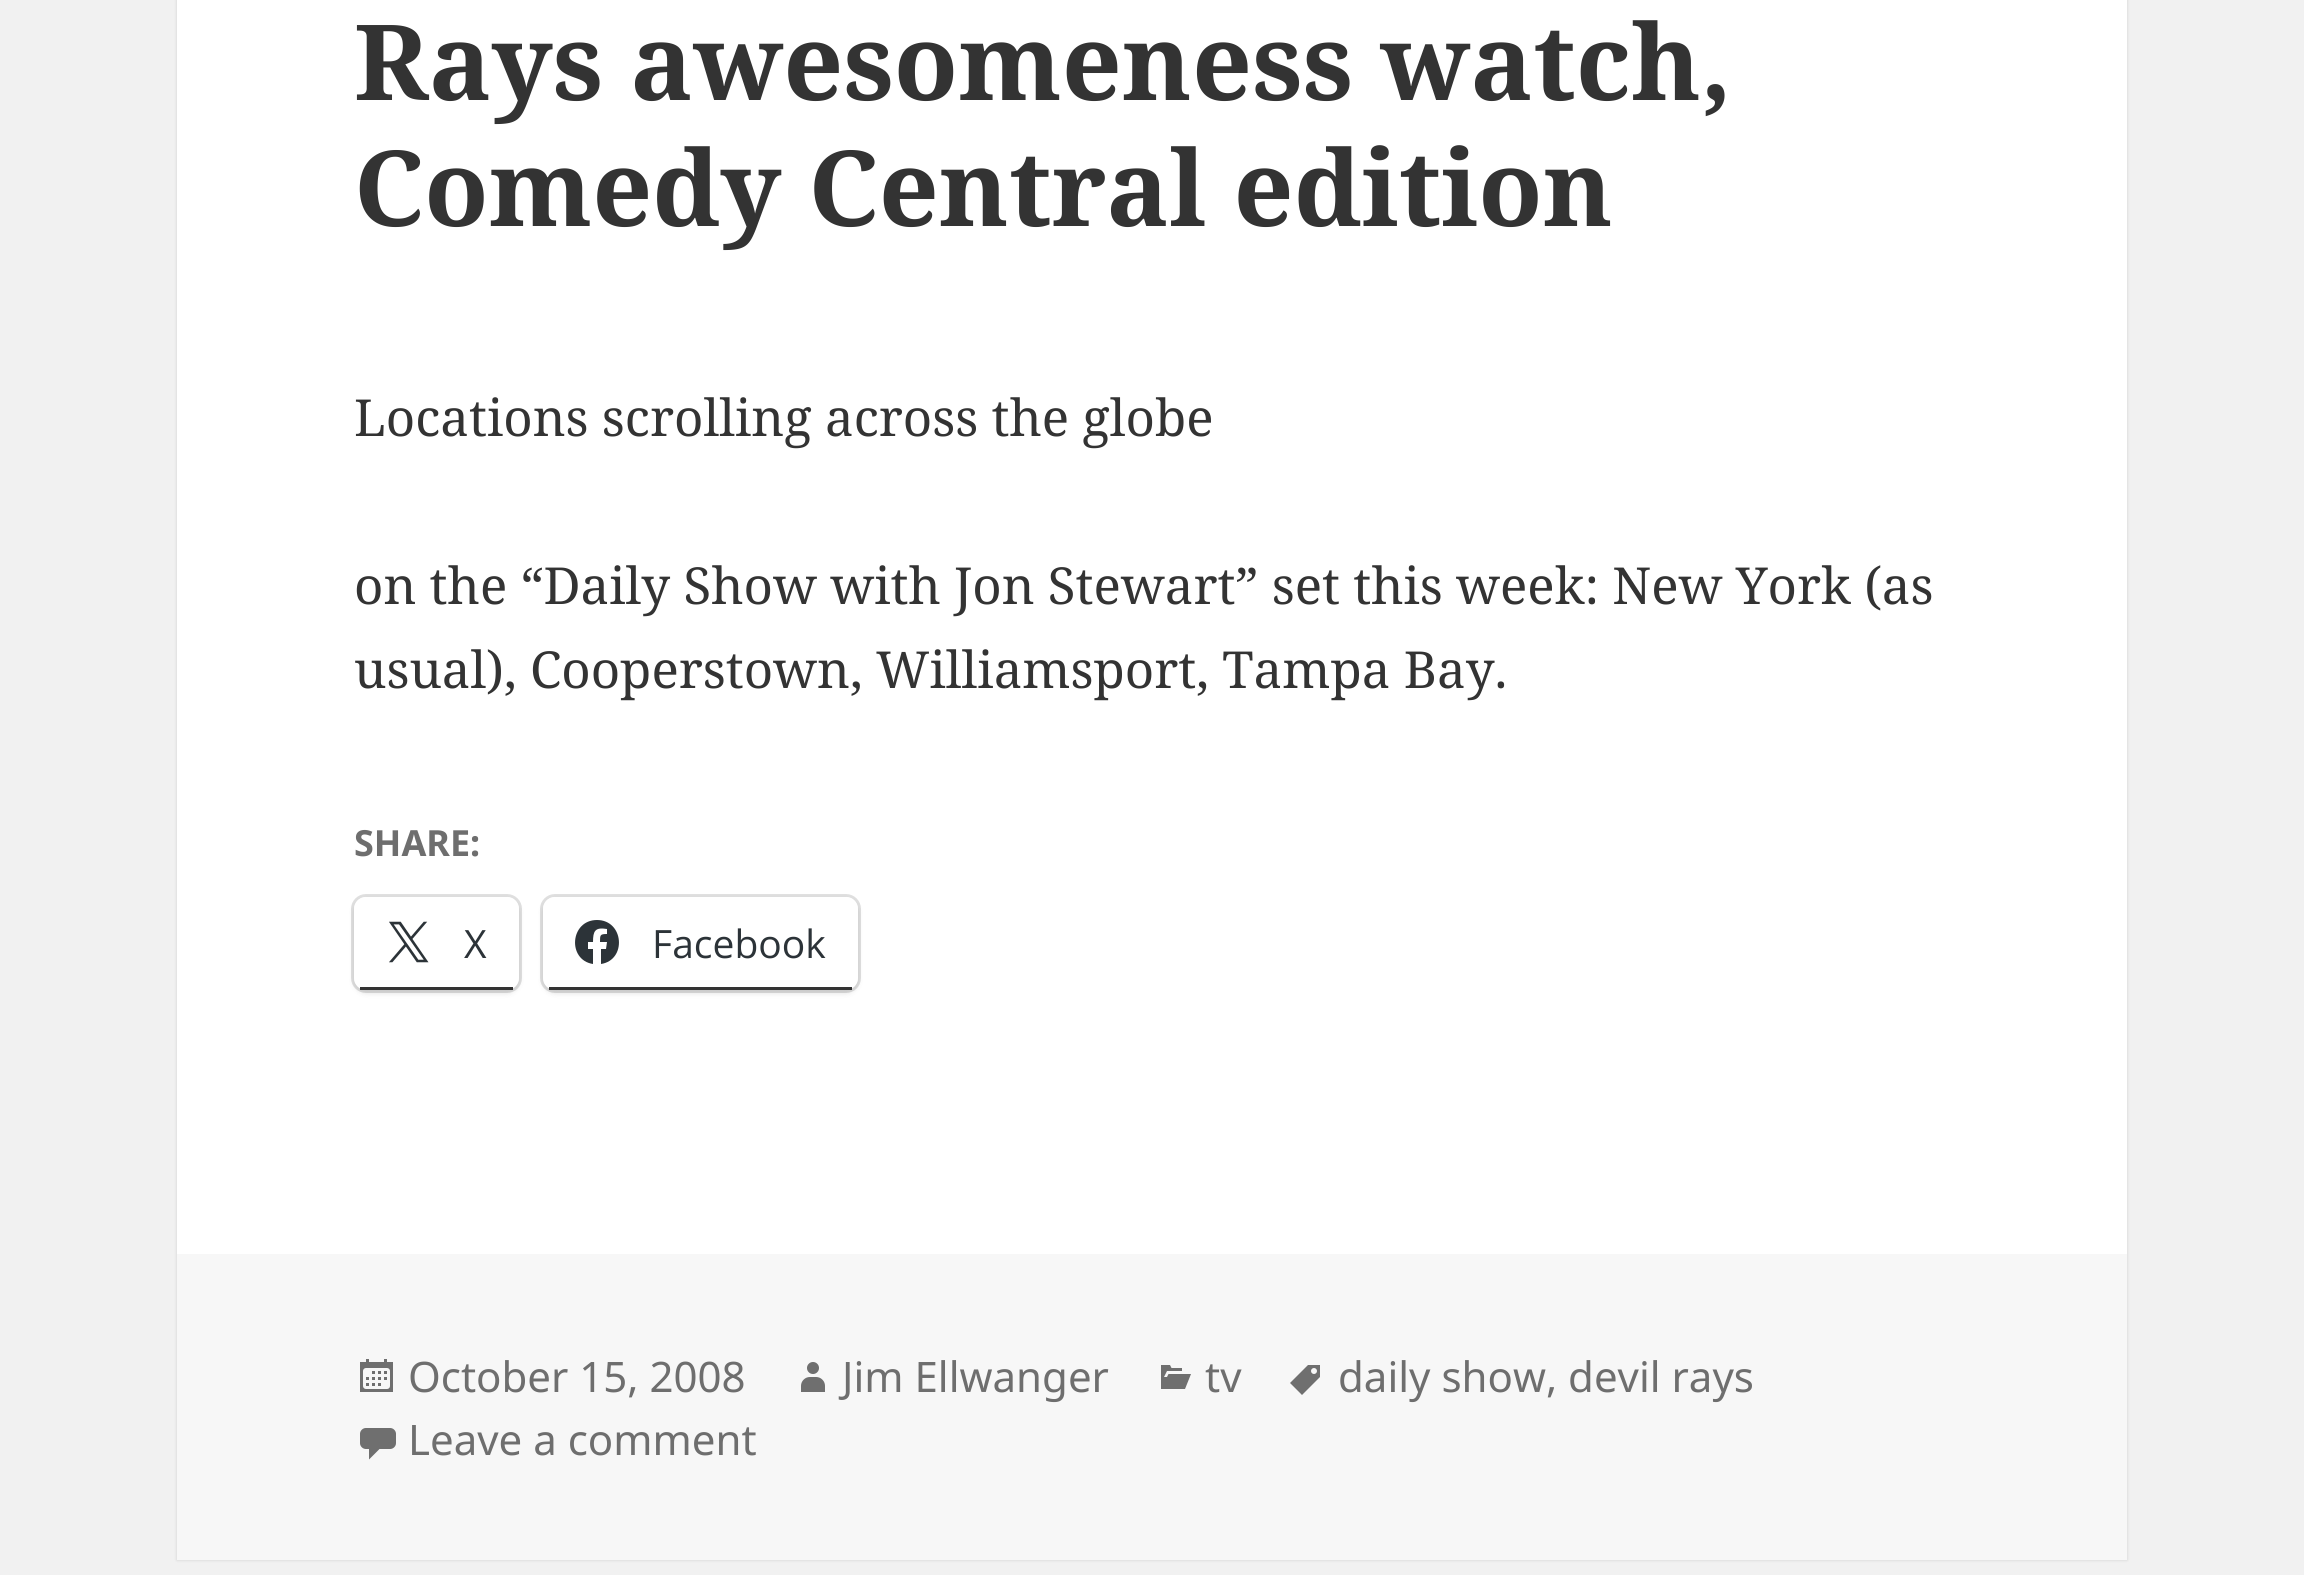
#include <cairo.h>
#include <math.h>
#include <stddef.h>

typedef struct { const char *family; double size; int italic, bold; unsigned color; } style_t;
static cairo_t *ctx;

static void ink(unsigned color) {
    cairo_set_source_rgb(ctx, (color >> 16) / 255.0, (color >> 8 & 255) / 255.0, (color & 255) / 255.0);
}

static void write(double x, double y, const char *s, const style_t *st) {
    cairo_select_font_face(ctx, st->family, st->italic ? CAIRO_FONT_SLANT_ITALIC : CAIRO_FONT_SLANT_NORMAL,
        st->bold ? CAIRO_FONT_WEIGHT_BOLD : CAIRO_FONT_WEIGHT_NORMAL);
    cairo_set_font_size(ctx, st->size);
    ink(st->color);
    cairo_move_to(ctx, x, y);
    cairo_show_text(ctx, s);
}

static void block(double x, double y, double w, double h, unsigned color) {
    ink(color);
    cairo_rectangle(ctx, x, y, w, h);
    cairo_fill(ctx);
}

static void round_path(double x, double y, double w, double h, double r) {
    cairo_new_sub_path(ctx);
    cairo_arc(ctx, x + w - r, y + h - r, r, 0, M_PI / 2);
    cairo_arc(ctx, x + r, y + h - r, r, M_PI / 2, M_PI);
    cairo_arc(ctx, x + r, y + r, r, M_PI, 1.5 * M_PI);
    cairo_arc(ctx, x + w - r, y + r, r, 1.5 * M_PI, 2 * M_PI);
    cairo_close_path(ctx);
}

static void blur_box(double x, double y, double w, double h, double r, double blur, double alpha) {
    cairo_push_group_with_content(ctx, CAIRO_CONTENT_ALPHA);
    cairo_set_operator(ctx, CAIRO_OPERATOR_SOURCE);
    for (int i = 15; i >= -15 && fmin(w, h) + blur * i / 3 > 0; i -= 2) {
        double e = blur * i / 6;
        cairo_set_source_rgba(ctx, 0, 0, 0, alpha * erfc((i - 1) / 8.5) / 2);
        round_path(x - e, y - e, w + 2 * e, h + 2 * e, fmax(0, fmin(r + e + blur * .6, fmin(w, h) / 2 + e)));
        cairo_fill(ctx);
    }
    cairo_pattern_t *soft = cairo_pop_group(ctx);
    cairo_mask(ctx, soft);
    cairo_pattern_destroy(soft);
}

static void paste(const char *path, double x, double y, double w, double h) {
    cairo_surface_t *image = cairo_image_surface_create_from_png(path);
    cairo_save(ctx);
    cairo_set_source_surface(ctx, image, x, y);
    cairo_rectangle(ctx, x, y, w, h);
    cairo_fill(ctx);
    cairo_restore(ctx);
    cairo_surface_destroy(image);
}

static const style_t s1 = {"Noto Serif", 105, 0, 1, 0x333333};
static const style_t s2 = {"Noto Serif", 51, 0, 0, 0x333333};
static const style_t s3 = {"Noto Sans", 36, 0, 1, 0x6e6e6e};
static const style_t s4 = {"Open Sans", 39, 0, 0, 0x2c3338};
static const style_t s5 = {"Noto Sans", 42, 0, 0, 0x6e6e6e};

int main(void) {
    cairo_surface_t *surface = cairo_image_surface_create(CAIRO_FORMAT_RGB24, 2304, 1575);
    ctx = cairo_create(surface);
    cairo_font_options_t *options = cairo_font_options_create();
    cairo_font_options_set_hint_metrics(options, CAIRO_HINT_METRICS_OFF);
    cairo_font_options_set_hint_style(options, CAIRO_HINT_STYLE_NONE);
    cairo_set_font_options(ctx, options);
    cairo_set_miter_limit(ctx, 4);
    ink(0xf1f1f1);
    cairo_paint(ctx);
    ink(0x000000);
    blur_box(177, -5, 1950, 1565, 0, 1.5, 0.15);
    block(177, 0, 1950, 1254, 0xffffff);
    write(354, 100, "Rays awesomeness watch,", &s1);
    write(354, 226, "Comedy Central edition", &s1);
    write(354, 436, "Locations scrolling across the globe", &s2);
    write(354, 604, "on the “Daily Show with Jon Stewart” set this week: New York (as", &s2);
    write(354, 688, "usual), Cooperstown, Williamsport, Tampa Bay.", &s2);
    write(354, 856, "SHARE:", &s3);
    round_path(352.5, 895.5, 168, 96, 13.5);
    ink(0xe0e0e0);
    cairo_set_line_width(ctx, 3);
    cairo_stroke(ctx);
    ink(0x000000);
    blur_box(354, 900, 165, 93, 12, 3, 0.12);
    ink(0xffffff);
    round_path(354, 897, 165, 93, 12);
    cairo_fill(ctx);
    block(360, 987, 153, 3, 0x333333);
    paste("pic1.png", 389, 921, 40, 42);
    write(464, 958, "X", &s4);
    round_path(541.5, 895.5, 318, 96, 13.5);
    ink(0xe0e0e0);
    cairo_stroke(ctx);
    ink(0x000000);
    blur_box(543, 900, 315, 93, 12, 3, 0.12);
    ink(0xffffff);
    round_path(543, 897, 315, 93, 12);
    cairo_fill(ctx);
    block(549, 987, 303, 3, 0x333333);
    ink(0x2c3338);
    cairo_new_path(ctx);
    cairo_move_to(ctx, 597, 920);
    cairo_curve_to(ctx, 570, 920, 567, 960, 593, 964);
    cairo_line_to(ctx, 593, 949);
    cairo_line_to(ctx, 588, 949);
    cairo_line_to(ctx, 588, 942);
    cairo_line_to(ctx, 593, 942);
    cairo_curve_to(ctx, 593, 931, 595, 927, 607, 929);
    cairo_line_to(ctx, 607, 934);
    cairo_curve_to(ctx, 600, 934, 600, 935, 600, 942);
    cairo_line_to(ctx, 607, 942);
    cairo_line_to(ctx, 606, 949);
    cairo_line_to(ctx, 601, 949);
    cairo_line_to(ctx, 601, 964);
    cairo_curve_to(ctx, 627, 960, 624, 920, 597, 920);
    cairo_close_path(ctx);
    cairo_fill(ctx);
    write(652, 958, "Facebook", &s4);
    block(177, 1254, 1950, 306, 0xf7f7f7);
    paste("pic2.png", 360, 1359, 33, 33);
    write(408, 1392, "October 15, 2008", &s5);
    paste("pic3.png", 801, 1362, 24, 30);
    write(842, 1392, "Jim Ellwanger", &s5);
    paste("pic4.png", 1161, 1365, 30, 24);
    write(1205, 1392, "tv", &s5);
    paste("pic5.png", 1290, 1365, 30, 30);
    write(1338, 1392, "daily show, devil rays", &s5);
    paste("pic6.png", 360, 1428, 36, 32);
    write(408, 1455, "Leave a comment", &s5);
    cairo_surface_write_to_png(surface, "screenshot.png");
    cairo_font_options_destroy(options);
    cairo_destroy(ctx);
    cairo_surface_destroy(surface);
    return 0;
}
